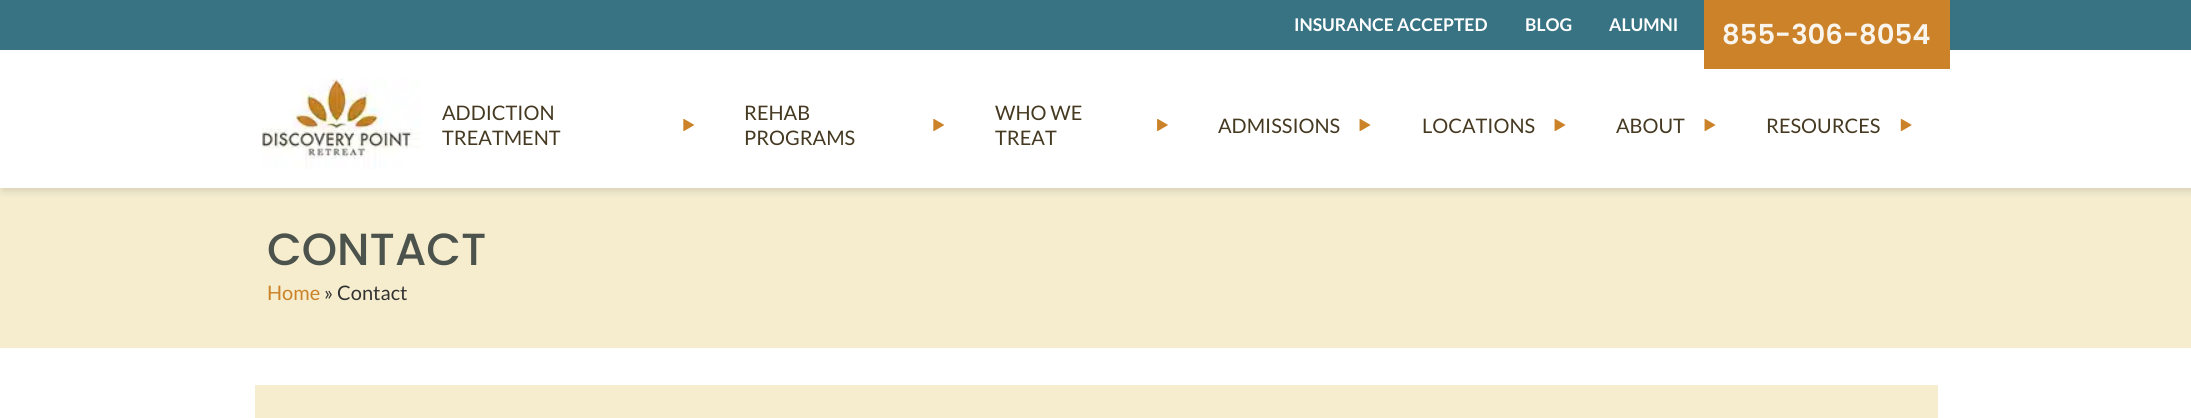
#include <cairo.h>
#include <math.h>
#include <stddef.h>

typedef struct { const char *family; double size; int italic, bold; unsigned color; } style_t;
static cairo_t *ctx;

static void ink(unsigned color) {
    cairo_set_source_rgb(ctx, (color >> 16) / 255.0, (color >> 8 & 255) / 255.0, (color & 255) / 255.0);
}

static void write(double x, double y, const char *s, const style_t *st) {
    cairo_select_font_face(ctx, st->family, st->italic ? CAIRO_FONT_SLANT_ITALIC : CAIRO_FONT_SLANT_NORMAL,
        st->bold ? CAIRO_FONT_WEIGHT_BOLD : CAIRO_FONT_WEIGHT_NORMAL);
    cairo_set_font_size(ctx, st->size);
    ink(st->color);
    cairo_move_to(ctx, x, y);
    cairo_show_text(ctx, s);
}

static void block(double x, double y, double w, double h, unsigned color) {
    ink(color);
    cairo_rectangle(ctx, x, y, w, h);
    cairo_fill(ctx);
}

static void round_path(double x, double y, double w, double h, double r) {
    cairo_new_sub_path(ctx);
    cairo_arc(ctx, x + w - r, y + h - r, r, 0, M_PI / 2);
    cairo_arc(ctx, x + r, y + h - r, r, M_PI / 2, M_PI);
    cairo_arc(ctx, x + r, y + r, r, M_PI, 1.5 * M_PI);
    cairo_arc(ctx, x + w - r, y + r, r, 1.5 * M_PI, 2 * M_PI);
    cairo_close_path(ctx);
}

static void blur_box(double x, double y, double w, double h, double r, double blur, double alpha) {
    cairo_push_group_with_content(ctx, CAIRO_CONTENT_ALPHA);
    cairo_set_operator(ctx, CAIRO_OPERATOR_SOURCE);
    for (int i = 15; i >= -15 && fmin(w, h) + blur * i / 3 > 0; i -= 2) {
        double e = blur * i / 6;
        cairo_set_source_rgba(ctx, 0, 0, 0, alpha * erfc((i - 1) / 8.5) / 2);
        round_path(x - e, y - e, w + 2 * e, h + 2 * e, fmax(0, fmin(r + e + blur * .6, fmin(w, h) / 2 + e)));
        cairo_fill(ctx);
    }
    cairo_pattern_t *soft = cairo_pop_group(ctx);
    cairo_mask(ctx, soft);
    cairo_pattern_destroy(soft);
}

static void paste(const char *path, double x, double y, double w, double h) {
    cairo_surface_t *image = cairo_image_surface_create_from_png(path);
    cairo_save(ctx);
    cairo_set_source_surface(ctx, image, x, y);
    cairo_rectangle(ctx, x, y, w, h);
    cairo_fill(ctx);
    cairo_restore(ctx);
    cairo_surface_destroy(image);
}

static const style_t s1 = {"Lato", 17.5, 0, 1, 0xffffff};
static const style_t s2 = {"Poppins SemiBold", 27.5, 0, 0, 0xf9f4ec};
static const style_t s3 = {"Lato", 20, 0, 0, 0x453921};
static const style_t s4 = {"Poppins Medium", 45, 0, 0, 0x4c524c};
static const style_t s5 = {"Lato", 20, 0, 0, 0xcb8228};
static const style_t s6 = {"Lato", 20, 0, 0, 0x333333};

int main(void) {
    cairo_surface_t *surface = cairo_image_surface_create(CAIRO_FORMAT_RGB24, 2191, 418);
    ctx = cairo_create(surface);
    cairo_font_options_t *options = cairo_font_options_create();
    cairo_font_options_set_hint_metrics(options, CAIRO_HINT_METRICS_OFF);
    cairo_font_options_set_hint_style(options, CAIRO_HINT_STYLE_NONE);
    cairo_set_font_options(ctx, options);
    cairo_set_miter_limit(ctx, 4);
    ink(0xffffff);
    cairo_paint(ctx);
    block(0, 188, 2191, 160, 0xf5edce);
    ink(0x000000);
    blur_box(3, 3, 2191, 187, 0, 4.5, 0.15);
    block(0, 50, 2191, 138, 0xffffff);
    block(0, 0, 2191, 50, 0x387383);
    write(1294, 31, "INSURANCE ACCEPTED", &s1);
    write(1525, 31, "BLOG", &s1);
    write(1609, 31, "ALUMNI", &s1);
    block(1704, 0, 246, 69, 0xcb8228);
    write(1722, 44, "855-306-8054", &s2);
    paste("pic1.png", 261, 78, 160, 91);
    write(442, 120, "ADDICTION", &s3);
    write(442, 145, "TREATMENT", &s3);
    paste("pic2.png", 683, 119, 12, 12);
    write(744, 120, "REHAB", &s3);
    write(744, 145, "PROGRAMS", &s3);
    paste("pic2.png", 933, 119, 12, 12);
    write(995, 120, "WHO WE", &s3);
    write(995, 145, "TREAT", &s3);
    paste("pic3.png", 1157, 119, 11, 12);
    write(1218, 133, "ADMISSIONS", &s3);
    paste("pic4.png", 1359, 119, 12, 12);
    write(1422, 133, "LOCATIONS", &s3);
    paste("pic4.png", 1554, 119, 12, 12);
    write(1616, 133, "ABOUT", &s3);
    paste("pic4.png", 1704, 119, 12, 12);
    write(1766, 133, "RESOURCES", &s3);
    paste("pic5.png", 1900, 119, 12, 12);
    write(267, 265, "CONTACT", &s4);
    write(267, 300, "Home", &s5);
    write(324, 300, "» Contact", &s6);
    block(255, 385, 1683, 33, 0xf5edce);
    cairo_surface_write_to_png(surface, "screenshot.png");
    cairo_font_options_destroy(options);
    cairo_destroy(ctx);
    cairo_surface_destroy(surface);
    return 0;
}
